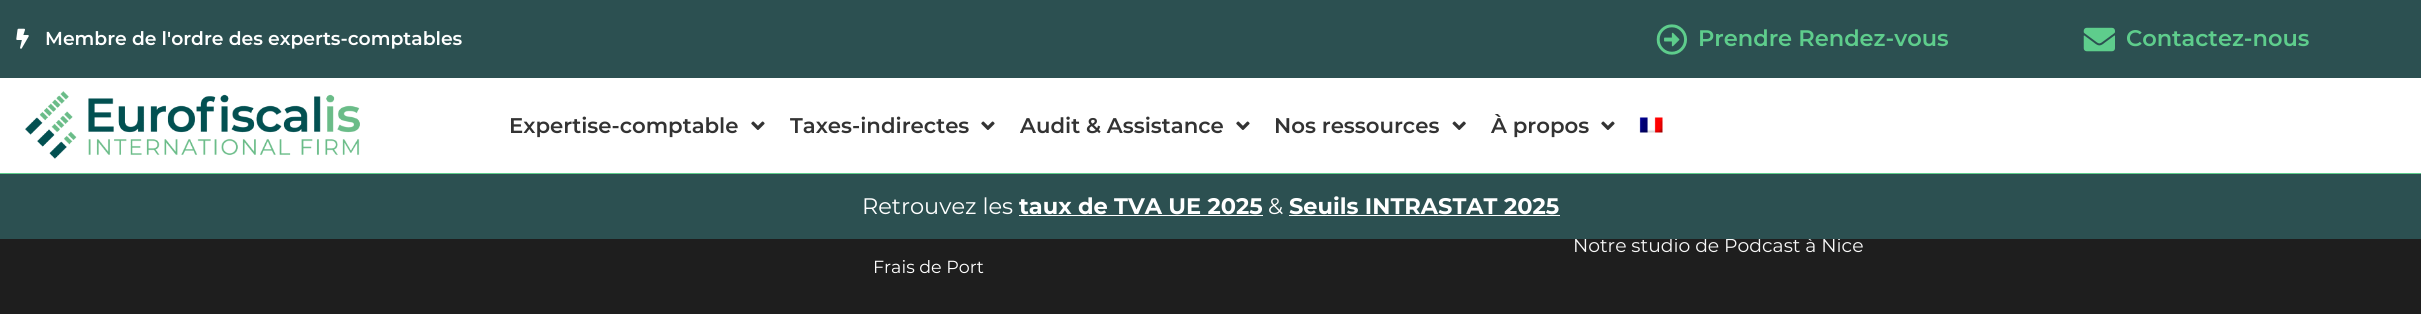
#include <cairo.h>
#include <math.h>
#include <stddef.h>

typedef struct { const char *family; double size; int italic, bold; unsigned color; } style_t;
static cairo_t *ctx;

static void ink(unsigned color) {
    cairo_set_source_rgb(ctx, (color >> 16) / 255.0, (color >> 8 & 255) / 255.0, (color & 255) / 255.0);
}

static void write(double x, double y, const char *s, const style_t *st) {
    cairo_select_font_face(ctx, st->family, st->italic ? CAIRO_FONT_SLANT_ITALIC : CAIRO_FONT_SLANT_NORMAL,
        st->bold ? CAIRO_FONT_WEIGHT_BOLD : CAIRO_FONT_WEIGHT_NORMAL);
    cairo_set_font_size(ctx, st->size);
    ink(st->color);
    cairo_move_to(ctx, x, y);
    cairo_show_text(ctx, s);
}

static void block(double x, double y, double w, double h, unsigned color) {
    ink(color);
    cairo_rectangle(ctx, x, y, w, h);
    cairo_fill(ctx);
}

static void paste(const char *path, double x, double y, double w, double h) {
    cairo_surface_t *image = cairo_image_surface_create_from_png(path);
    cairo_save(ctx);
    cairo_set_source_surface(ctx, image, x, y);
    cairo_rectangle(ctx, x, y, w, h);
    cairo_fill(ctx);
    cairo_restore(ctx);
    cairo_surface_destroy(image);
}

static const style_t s1 = {"Montserrat SemiBold", 18.75, 0, 0, 0xffffff};
static const style_t s2 = {"Montserrat SemiBold", 22.5, 0, 0, 0x5ecd8c};
static const style_t s3 = {"Montserrat SemiBold", 21.25, 0, 0, 0x333333};
static const style_t s4 = {"Montserrat", 18.75, 0, 0, 0xf8f8f8};
static const style_t s5 = {"Montserrat", 22.5, 0, 0, 0xffffff};
static const style_t s6 = {"Montserrat", 22.5, 0, 1, 0xffffff};
static const style_t s7 = {"Montserrat", 17.5, 0, 0, 0xffffff};

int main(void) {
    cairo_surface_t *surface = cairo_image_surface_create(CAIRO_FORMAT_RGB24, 2421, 314);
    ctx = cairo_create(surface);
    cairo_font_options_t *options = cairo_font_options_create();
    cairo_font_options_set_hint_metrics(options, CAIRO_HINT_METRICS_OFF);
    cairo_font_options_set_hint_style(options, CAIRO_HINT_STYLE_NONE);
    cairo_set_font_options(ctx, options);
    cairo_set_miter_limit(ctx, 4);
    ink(0x1e1e1e);
    cairo_paint(ctx);
    block(0, 0, 2421, 78, 0x2c5051);
    paste("pic1.png", 16, 28, 13, 21);
    write(45, 45, "Membre de l'ordre des experts-comptables", &s1);
    paste("pic2.png", 1656, 24, 31, 31);
    write(1698, 46, "Prendre Rendez-vous", &s2);
    paste("pic3.png", 2083, 27, 32, 25);
    write(2126, 46, "Contactez-nous", &s2);
    block(0, 78, 2421, 95, 0xffffff);
    block(0, 173, 2421, 1, 0x5ecd8c);
    paste("pic4.png", 25, 91, 335, 68);
    write(509, 133, "Expertise-comptable", &s3);
    paste("pic5.png", 751, 121, 14, 9);
    write(790, 133, "Taxes-indirectes", &s3);
    paste("pic5.png", 981, 121, 14, 9);
    write(1020, 133, "Audit & Assistance", &s3);
    paste("pic5.png", 1236, 121, 14, 9);
    write(1274, 133, "Nos ressources", &s3);
    paste("pic6.png", 1452, 121, 14, 9);
    write(1491, 133, "À propos", &s3);
    paste("pic5.png", 1601, 121, 14, 9);
    paste("pic7.png", 1639, 117, 24, 16);
    write(1573, 252, "Notre studio de Podcast à Nice", &s4);
    block(0, 174, 2421, 65, 0x2c5051);
    write(862, 214, "Retrouvez les", &s5);
    write(1019, 214, "taux de TVA UE 2025", &s6);
    block(1019, 215, 244, 1, 0xffffff);
    write(1268, 214, "&", &s5);
    write(1289, 214, "Seuils INTRASTAT 2025", &s6);
    block(1289, 215, 271, 1, 0xffffff);
    write(873, 273, "Frais de Port", &s7);
    cairo_surface_write_to_png(surface, "screenshot.png");
    cairo_font_options_destroy(options);
    cairo_destroy(ctx);
    cairo_surface_destroy(surface);
    return 0;
}
